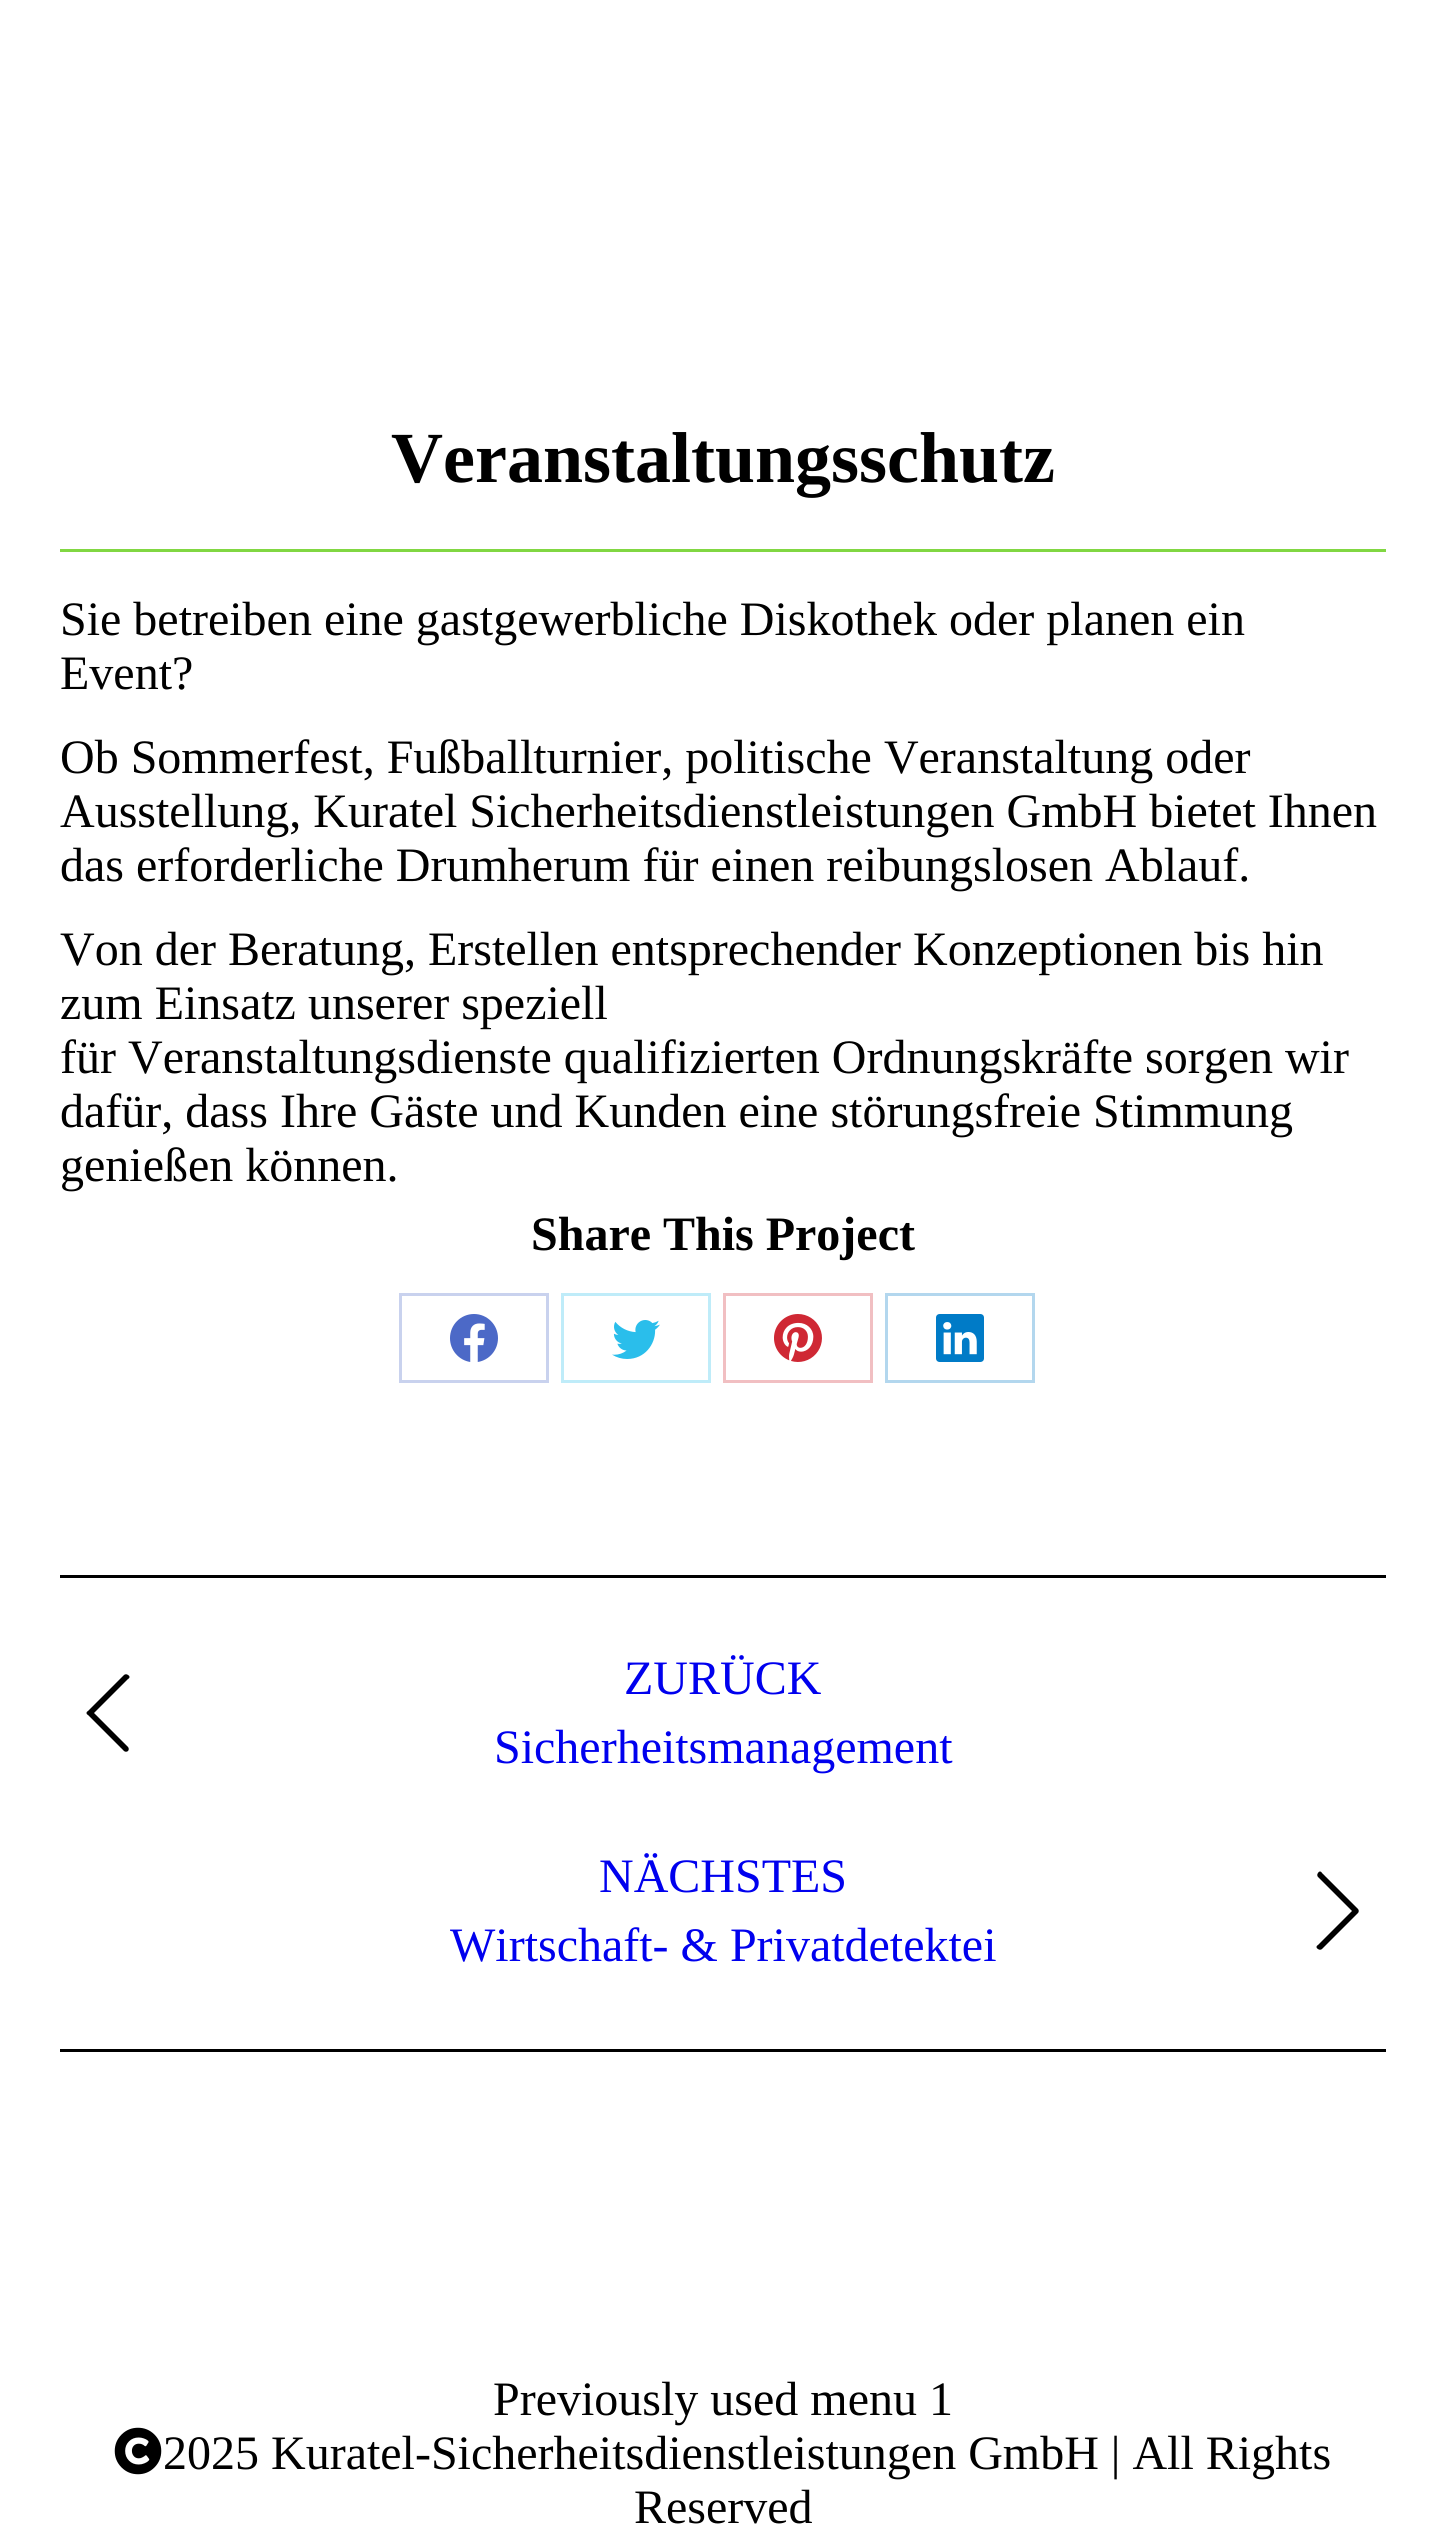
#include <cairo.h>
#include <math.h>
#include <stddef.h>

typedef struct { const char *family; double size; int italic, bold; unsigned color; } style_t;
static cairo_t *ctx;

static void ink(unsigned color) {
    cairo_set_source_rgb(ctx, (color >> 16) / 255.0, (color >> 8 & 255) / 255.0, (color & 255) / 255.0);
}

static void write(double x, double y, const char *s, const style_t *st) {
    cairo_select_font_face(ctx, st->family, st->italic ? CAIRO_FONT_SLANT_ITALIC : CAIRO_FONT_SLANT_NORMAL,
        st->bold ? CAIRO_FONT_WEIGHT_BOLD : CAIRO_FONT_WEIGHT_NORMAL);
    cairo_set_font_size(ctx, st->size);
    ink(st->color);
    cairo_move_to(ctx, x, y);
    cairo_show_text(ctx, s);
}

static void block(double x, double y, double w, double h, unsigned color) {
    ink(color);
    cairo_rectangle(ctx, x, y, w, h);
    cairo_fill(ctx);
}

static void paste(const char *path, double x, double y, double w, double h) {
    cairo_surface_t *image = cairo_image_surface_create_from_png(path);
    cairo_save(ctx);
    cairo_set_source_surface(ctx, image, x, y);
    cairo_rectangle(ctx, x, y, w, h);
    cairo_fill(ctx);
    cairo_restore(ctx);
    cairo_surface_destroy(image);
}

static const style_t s1 = {"Liberation Serif", 72, 0, 1, 0x000000};
static const style_t s2 = {"Liberation Serif", 48, 0, 0, 0x000000};
static const style_t s3 = {"Liberation Serif", 48, 0, 1, 0x000000};
static const style_t s4 = {"Liberation Serif", 48, 0, 0, 0x0000ee};

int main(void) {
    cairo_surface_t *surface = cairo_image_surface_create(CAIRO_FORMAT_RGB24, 1446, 2533);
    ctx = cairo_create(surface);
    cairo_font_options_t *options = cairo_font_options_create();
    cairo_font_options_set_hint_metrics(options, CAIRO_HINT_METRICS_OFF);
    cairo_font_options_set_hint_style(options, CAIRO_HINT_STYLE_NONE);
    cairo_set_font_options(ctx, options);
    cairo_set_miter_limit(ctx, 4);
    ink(0xffffff);
    cairo_paint(ctx);
    write(391, 482, "Veranstaltungsschutz", &s1);
    block(60, 549, 1326, 3, 0x81d742);
    write(60, 635, "Sie betreiben eine gastgewerbliche Diskothek oder planen ein", &s2);
    write(60, 689, "Event?", &s2);
    write(60, 773, "Ob Sommerfest, Fußballturnier, politische Veranstaltung oder", &s2);
    write(60, 827, "Ausstellung, Kuratel Sicherheitsdienstleistungen GmbH bietet Ihnen", &s2);
    write(60, 881, "das erforderliche Drumherum für einen reibungslosen Ablauf.", &s2);
    write(60, 965, "Von der Beratung, Erstellen entsprechender Konzeptionen bis hin", &s2);
    write(60, 1019, "zum Einsatz unserer speziell", &s2);
    write(60, 1073, "für Veranstaltungsdienste qualifizierten Ordnungskräfte sorgen wir", &s2);
    write(60, 1127, "dafür, dass Ihre Gäste und Kunden eine störungsfreie Stimmung", &s2);
    write(60, 1181, "genießen können.", &s2);
    write(531, 1250, "Share This Project", &s3);
    cairo_rectangle(ctx, 400.5, 1294.5, 147, 87);
    ink(0xc9d2ee);
    cairo_set_line_width(ctx, 3);
    cairo_stroke(ctx);
    paste("pic1.png", 450, 1314, 48, 48);
    cairo_rectangle(ctx, 562.5, 1294.5, 147, 87);
    ink(0xbfecf9);
    cairo_stroke(ctx);
    paste("pic2.png", 612, 1320, 48, 39);
    cairo_rectangle(ctx, 724.5, 1294.5, 147, 87);
    ink(0xf1bfc2);
    cairo_stroke(ctx);
    paste("pic3.png", 774, 1314, 48, 48);
    cairo_rectangle(ctx, 886.5, 1294.5, 147, 87);
    ink(0xb3d7ee);
    cairo_stroke(ctx);
    paste("pic4.png", 936, 1314, 48, 48);
    block(60, 1575, 1326, 3, 0x000000);
    block(60, 2049, 1326, 3, 0x000000);
    cairo_new_path(ctx);
    cairo_move_to(ctx, 128, 1675);
    cairo_curve_to(ctx, 130, 1676, 130, 1678, 128, 1679);
    cairo_line_to(ctx, 94, 1713);
    cairo_line_to(ctx, 128, 1747);
    cairo_curve_to(ctx, 129, 1748, 129, 1750, 128, 1751);
    cairo_curve_to(ctx, 127, 1752, 125, 1752, 124, 1751);
    cairo_line_to(ctx, 88, 1715);
    cairo_curve_to(ctx, 86, 1714, 86, 1712, 88, 1711);
    cairo_line_to(ctx, 124, 1675);
    cairo_curve_to(ctx, 125, 1674, 127, 1674, 128, 1675);
    cairo_close_path(ctx);
    cairo_fill(ctx);
    write(624, 1694, "ZURÜCK", &s4);
    write(494, 1763, "Sicherheitsmanagement", &s4);
    write(599, 1892, "NÄCHSTES", &s4);
    ink(0x000000);
    cairo_new_path(ctx);
    cairo_move_to(ctx, 1318, 1873);
    cairo_curve_to(ctx, 1319, 1871, 1321, 1871, 1322, 1873);
    cairo_line_to(ctx, 1358, 1909);
    cairo_curve_to(ctx, 1359, 1910, 1359, 1912, 1358, 1913);
    cairo_line_to(ctx, 1322, 1949);
    cairo_curve_to(ctx, 1321, 1950, 1319, 1950, 1318, 1949);
    cairo_curve_to(ctx, 1316, 1948, 1316, 1946, 1318, 1945);
    cairo_line_to(ctx, 1352, 1911);
    cairo_line_to(ctx, 1318, 1877);
    cairo_curve_to(ctx, 1317, 1876, 1317, 1874, 1318, 1873);
    cairo_close_path(ctx);
    cairo_fill(ctx);
    write(450, 1961, "Wirtschaft- & Privatdetektei", &s4);
    write(493, 2415, "Previously used menu 1", &s2);
    paste("pic5.png", 114, 2427, 48, 48);
    write(163, 2469, "2025 Kuratel-Sicherheitsdienstleistungen GmbH | All Rights", &s2);
    write(634, 2523, "Reserved", &s2);
    cairo_surface_write_to_png(surface, "screenshot.png");
    cairo_font_options_destroy(options);
    cairo_destroy(ctx);
    cairo_surface_destroy(surface);
    return 0;
}
